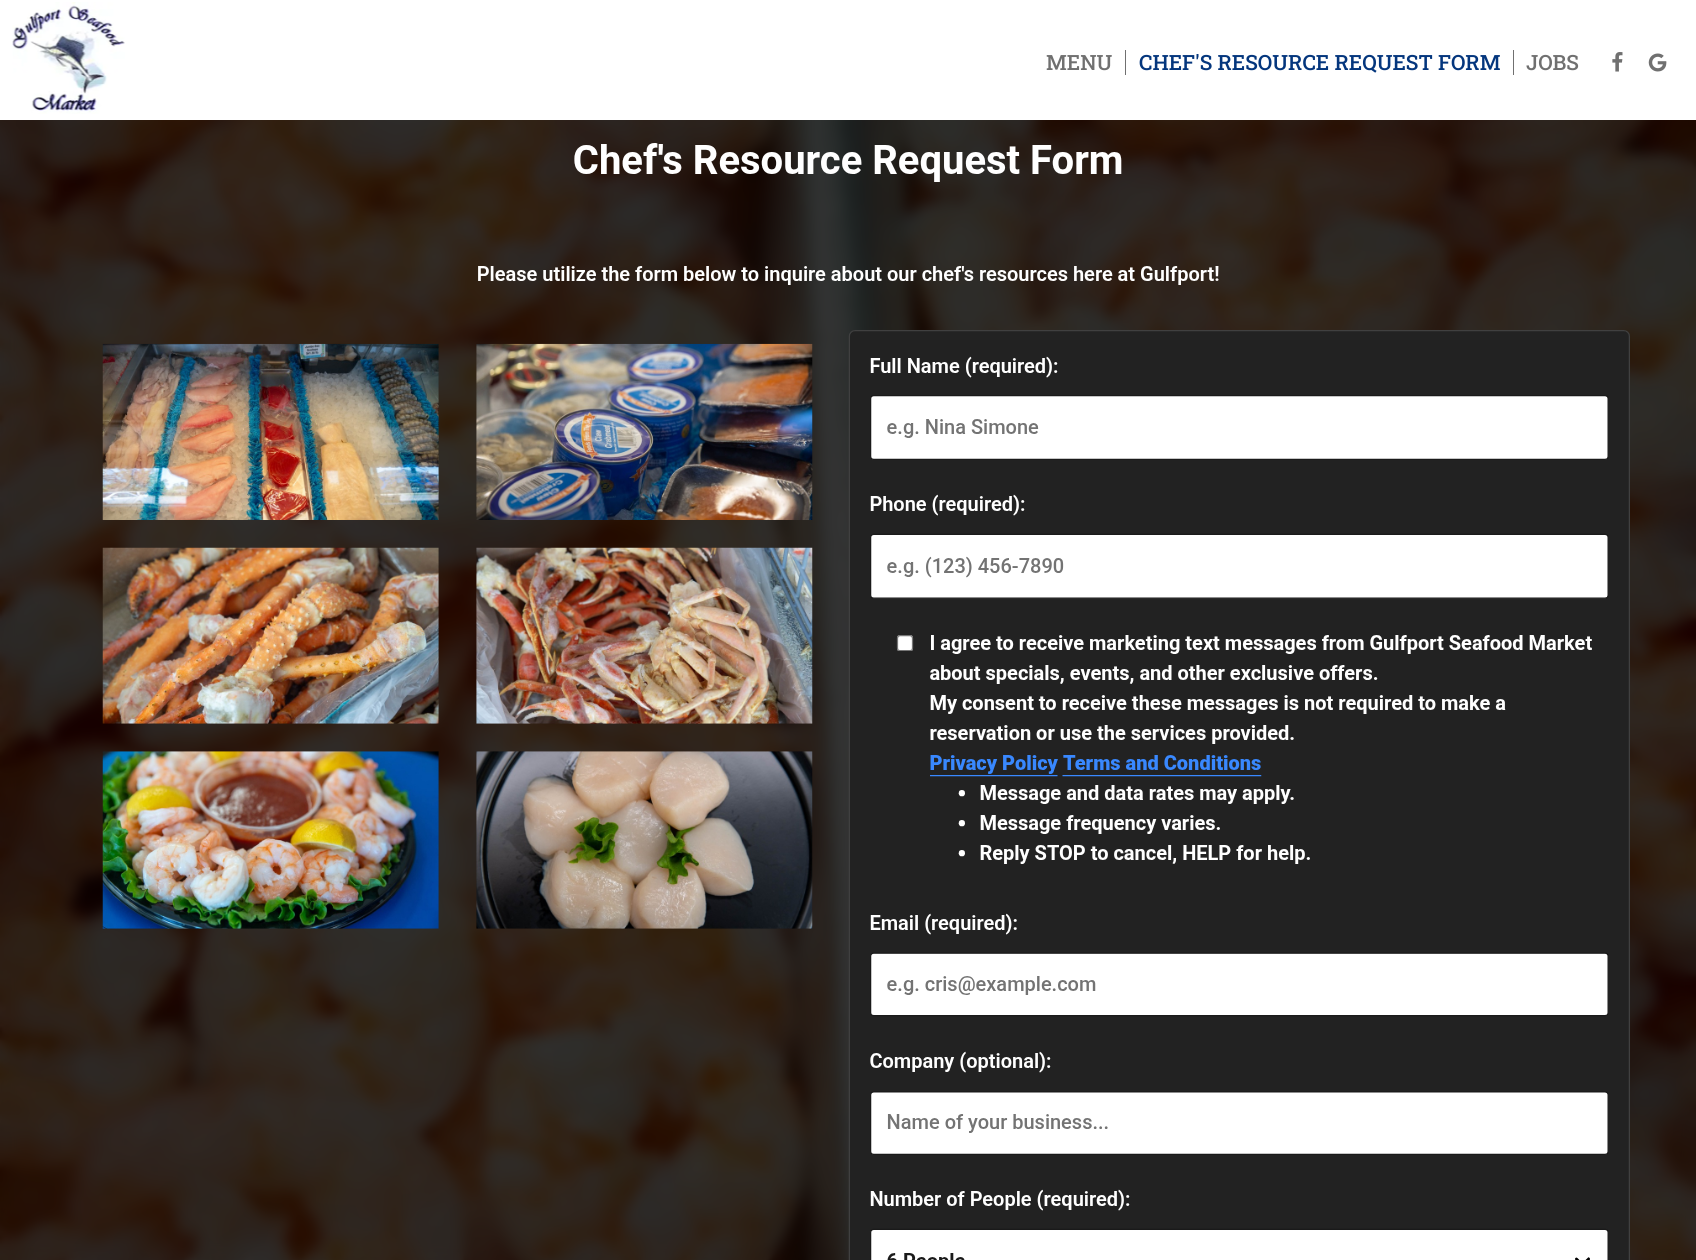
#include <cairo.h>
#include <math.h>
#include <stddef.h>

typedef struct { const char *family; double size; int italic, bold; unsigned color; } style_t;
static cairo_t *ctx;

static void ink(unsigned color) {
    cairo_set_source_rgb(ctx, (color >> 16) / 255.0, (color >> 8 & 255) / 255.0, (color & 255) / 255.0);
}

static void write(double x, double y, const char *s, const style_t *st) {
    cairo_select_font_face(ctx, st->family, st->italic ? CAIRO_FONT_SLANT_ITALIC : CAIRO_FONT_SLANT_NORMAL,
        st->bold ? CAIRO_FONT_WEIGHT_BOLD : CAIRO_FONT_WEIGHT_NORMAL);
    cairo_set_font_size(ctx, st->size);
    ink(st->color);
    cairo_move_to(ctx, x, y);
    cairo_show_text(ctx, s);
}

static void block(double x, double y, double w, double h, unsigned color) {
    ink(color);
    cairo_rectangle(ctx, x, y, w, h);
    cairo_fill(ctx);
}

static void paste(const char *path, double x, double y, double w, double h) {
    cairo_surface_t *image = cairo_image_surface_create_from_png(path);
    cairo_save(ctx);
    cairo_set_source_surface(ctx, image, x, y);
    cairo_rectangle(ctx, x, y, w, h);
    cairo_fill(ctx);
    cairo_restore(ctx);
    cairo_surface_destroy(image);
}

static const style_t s1 = {"Roboto Slab Medium", 21, 0, 0, 0x707070};
static const style_t s2 = {"Roboto Slab Medium", 21, 0, 0, 0x04367d};

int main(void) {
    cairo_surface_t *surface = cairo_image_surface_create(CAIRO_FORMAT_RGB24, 1696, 1260);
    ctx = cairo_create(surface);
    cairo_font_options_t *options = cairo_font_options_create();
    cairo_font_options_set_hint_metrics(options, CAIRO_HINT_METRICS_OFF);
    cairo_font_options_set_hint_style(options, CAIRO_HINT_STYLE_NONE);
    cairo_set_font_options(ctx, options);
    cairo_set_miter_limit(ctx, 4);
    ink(0xffffff);
    cairo_paint(ctx);
    paste("pic1.png", 12, 2, 113, 112);
    block(1125, 50, 1, 25, 0x707070);
    write(1046, 70, "MENU", &s1);
    block(1513, 50, 1, 25, 0x707070);
    write(1139, 70, "CHEF'S RESOURCE REQUEST FORM", &s2);
    write(1526, 70, "JOBS", &s1);
    paste("pic2.png", 1612, 52, 11, 20);
    paste("pic3.png", 1648, 53, 19, 19);
    paste("pic4.png", 0, 120, 1696, 1140);
    cairo_surface_write_to_png(surface, "screenshot.png");
    cairo_font_options_destroy(options);
    cairo_destroy(ctx);
    cairo_surface_destroy(surface);
    return 0;
}
